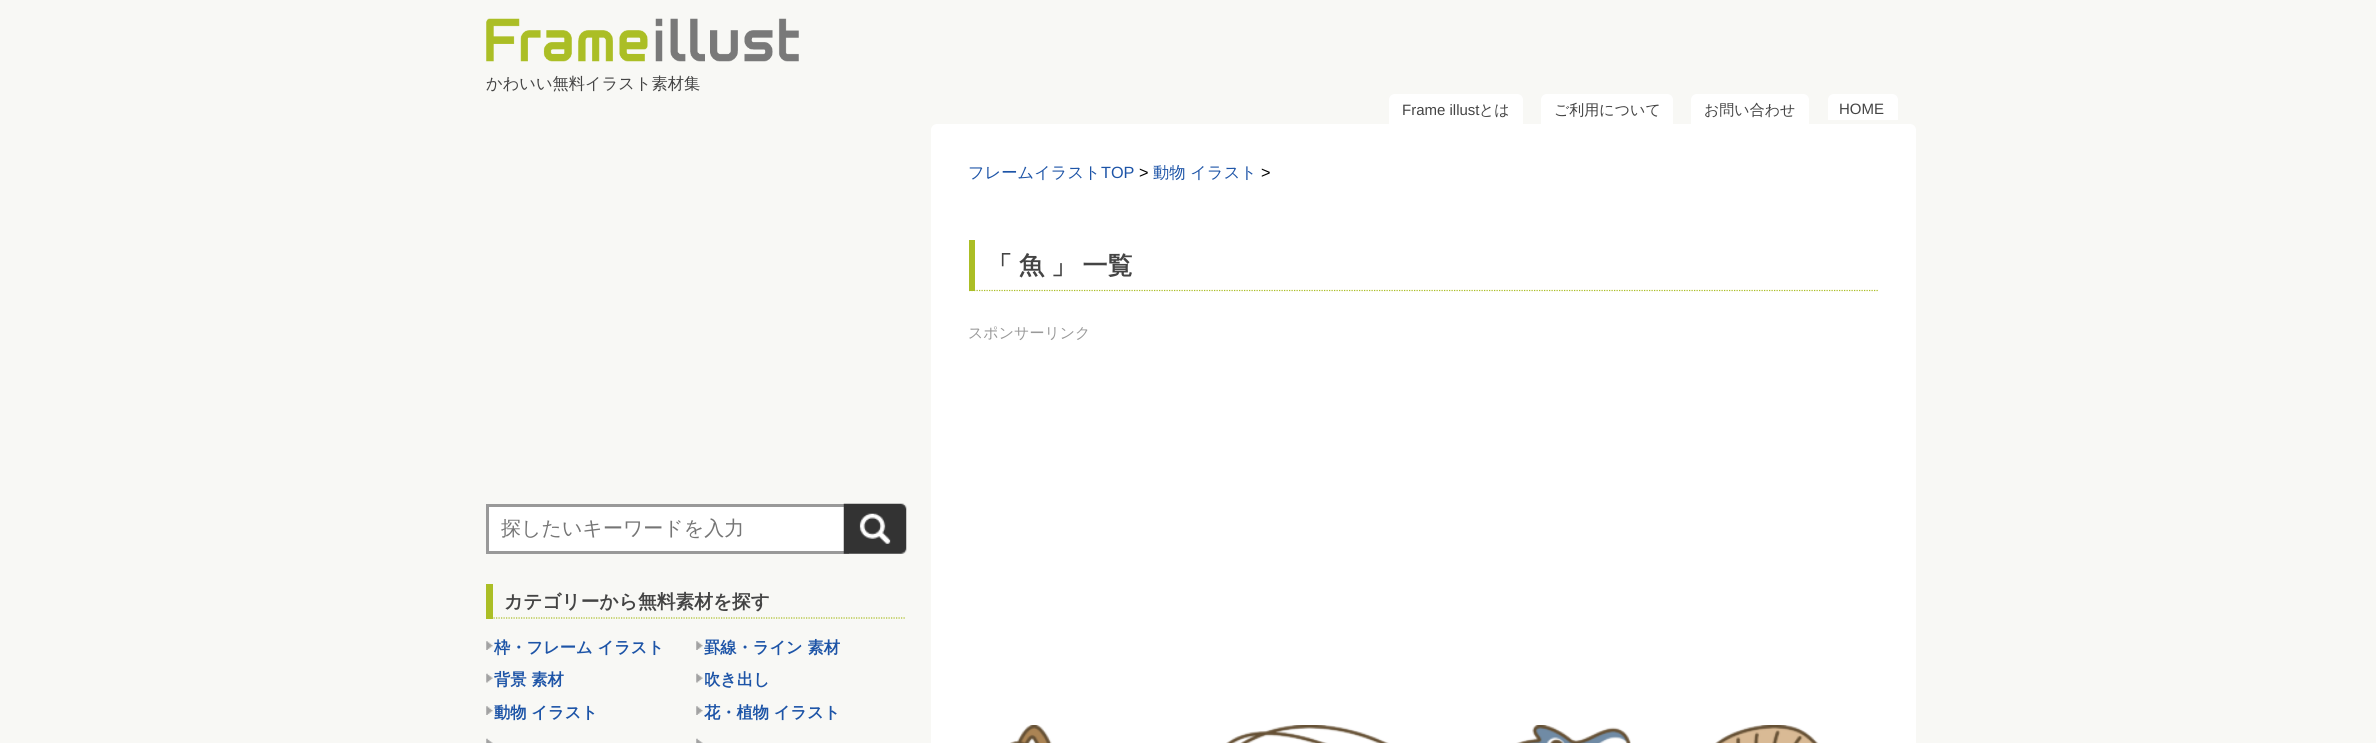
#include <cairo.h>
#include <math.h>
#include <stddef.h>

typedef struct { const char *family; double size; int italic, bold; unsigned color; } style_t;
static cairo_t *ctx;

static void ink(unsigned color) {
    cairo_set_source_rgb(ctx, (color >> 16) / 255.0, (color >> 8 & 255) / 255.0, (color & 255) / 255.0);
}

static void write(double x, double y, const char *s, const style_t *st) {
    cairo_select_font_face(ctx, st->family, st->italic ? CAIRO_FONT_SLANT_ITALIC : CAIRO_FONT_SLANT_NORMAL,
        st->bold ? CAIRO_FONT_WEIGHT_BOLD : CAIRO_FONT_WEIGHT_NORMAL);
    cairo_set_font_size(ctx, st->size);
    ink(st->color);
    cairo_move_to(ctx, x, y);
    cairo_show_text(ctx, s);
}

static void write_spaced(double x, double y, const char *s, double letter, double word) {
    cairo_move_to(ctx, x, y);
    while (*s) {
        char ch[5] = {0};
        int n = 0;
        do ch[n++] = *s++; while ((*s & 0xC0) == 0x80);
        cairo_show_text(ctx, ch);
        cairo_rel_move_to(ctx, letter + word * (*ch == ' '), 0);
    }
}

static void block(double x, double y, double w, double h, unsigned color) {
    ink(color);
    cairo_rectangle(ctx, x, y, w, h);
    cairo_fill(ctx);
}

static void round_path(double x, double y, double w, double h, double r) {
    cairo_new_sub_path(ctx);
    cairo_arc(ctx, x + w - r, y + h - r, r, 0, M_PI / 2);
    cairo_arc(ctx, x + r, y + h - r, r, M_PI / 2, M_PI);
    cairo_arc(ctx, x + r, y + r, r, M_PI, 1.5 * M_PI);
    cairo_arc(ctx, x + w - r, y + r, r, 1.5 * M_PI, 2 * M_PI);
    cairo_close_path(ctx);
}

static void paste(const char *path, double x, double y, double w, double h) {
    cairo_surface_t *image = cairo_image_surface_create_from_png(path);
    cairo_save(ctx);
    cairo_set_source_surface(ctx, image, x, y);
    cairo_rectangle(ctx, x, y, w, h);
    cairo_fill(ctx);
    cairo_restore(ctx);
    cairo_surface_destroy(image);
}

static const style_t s1 = {"WenQuanYi Zen Hei Medium", 16.25, 0, 0, 0x444444};
static const style_t s2 = {"Liberation Sans", 15, 0, 0, 0x444444};
static const style_t s3 = {"WenQuanYi Zen Hei Medium", 15, 0, 0, 0x444444};
static const style_t s4 = {"WenQuanYi Zen Hei Medium", 16.25, 0, 0, 0x1d54a7};
static const style_t s5 = {"Liberation Sans", 16.25, 0, 0, 0x1d54a7};
static const style_t s6 = {"Liberation Sans", 16.25, 0, 0, 0x000000};
static const style_t s7 = {"WenQuanYi Zen Hei", 25, 0, 1, 0x444444};
static const style_t s8 = {"WenQuanYi Zen Hei Medium", 15, 0, 0, 0x999999};
static const style_t s9 = {"WenQuanYi Zen Hei Medium", 20, 0, 0, 0x757575};
static const style_t s10 = {"WenQuanYi Zen Hei", 18.75, 0, 1, 0x444444};
static const style_t s11 = {"WenQuanYi Zen Hei", 16.25, 0, 1, 0x1d54a7};

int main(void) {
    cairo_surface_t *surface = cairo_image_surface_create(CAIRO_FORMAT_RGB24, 2376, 743);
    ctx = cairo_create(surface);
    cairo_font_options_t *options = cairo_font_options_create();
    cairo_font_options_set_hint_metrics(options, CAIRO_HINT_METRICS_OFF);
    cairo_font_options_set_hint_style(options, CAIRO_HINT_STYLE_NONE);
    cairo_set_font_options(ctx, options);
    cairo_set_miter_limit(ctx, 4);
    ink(0xf8f8f5);
    cairo_paint(ctx);
    paste("pic1.png", 486, 18, 313, 44);
    write(486, 89, "かわいい無料イラスト素材集", &s1);
    ink(0xffffff);
    cairo_new_path(ctx);
    cairo_move_to(ctx, 1395, 94);
    cairo_line_to(ctx, 1517, 94);
    cairo_curve_to(ctx, 1520.5, 94, 1523, 96.5, 1523, 100);
    cairo_line_to(ctx, 1523, 124);
    cairo_line_to(ctx, 1389, 124);
    cairo_line_to(ctx, 1389, 100);
    cairo_curve_to(ctx, 1389, 96.5, 1391.5, 94, 1395, 94);
    cairo_close_path(ctx);
    cairo_fill(ctx);
    write(1402, 115, "Frame illust", &s2);
    write(1479, 115, "とは", &s3);
    ink(0xffffff);
    cairo_new_path(ctx);
    cairo_move_to(ctx, 1547, 94);
    cairo_line_to(ctx, 1667, 94);
    cairo_curve_to(ctx, 1670.5, 94, 1673, 96.5, 1673, 100);
    cairo_line_to(ctx, 1673, 124);
    cairo_line_to(ctx, 1541, 124);
    cairo_line_to(ctx, 1541, 100);
    cairo_curve_to(ctx, 1541, 96.5, 1543.5, 94, 1547, 94);
    cairo_close_path(ctx);
    cairo_fill(ctx);
    write(1554, 115, "ご利用について", &s3);
    ink(0xffffff);
    cairo_new_path(ctx);
    cairo_move_to(ctx, 1697, 94);
    cairo_line_to(ctx, 1803, 94);
    cairo_curve_to(ctx, 1806.5, 94, 1809, 96.5, 1809, 100);
    cairo_line_to(ctx, 1809, 124);
    cairo_line_to(ctx, 1691, 124);
    cairo_line_to(ctx, 1691, 100);
    cairo_curve_to(ctx, 1691, 96.5, 1693.5, 94, 1697, 94);
    cairo_close_path(ctx);
    cairo_fill(ctx);
    write(1704, 115, "お問い合わせ", &s3);
    ink(0xffffff);
    cairo_new_path(ctx);
    cairo_move_to(ctx, 1834, 94);
    cairo_line_to(ctx, 1892, 94);
    cairo_curve_to(ctx, 1895.5, 94, 1898, 96.5, 1898, 100);
    cairo_line_to(ctx, 1898, 120);
    cairo_line_to(ctx, 1828, 120);
    cairo_line_to(ctx, 1828, 100);
    cairo_curve_to(ctx, 1828, 96.5, 1830.5, 94, 1834, 94);
    cairo_close_path(ctx);
    cairo_fill(ctx);
    write(1839, 114, "HOME", &s2);
    ink(0xffffff);
    round_path(931, 124, 985, 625, 6);
    cairo_fill(ctx);
    write(968, 178, "フレームイラスト", &s4);
    write(1101, 178, "TOP", &s5);
    write(1139, 178, ">", &s6);
    write(1153, 178, "動物 イラスト", &s4);
    write(1261, 178, ">", &s6);
    cairo_new_path(ctx);
    cairo_move_to(ctx, 969, 290.5);
    cairo_line_to(ctx, 1879, 290.5);
    ink(0xabbe25);
    cairo_set_line_width(ctx, 1.2);
    cairo_set_dash(ctx, (double[]){1.25, 1.25}, 2, 0);
    cairo_stroke(ctx);
    block(969, 240, 6, 51, 0xabbe25);
    write(987, 274, "「", &s7);
    write(1019, 274, "魚", &s7);
    write_spaced(1051, 274, "」 一覧", 0, -1);
    write(968, 338, "スポンサーリンク", &s8);
    paste("pic2.png", 1010, 725, 42, 18);
    paste("pic3.png", 1226, 725, 163, 18);
    paste("pic4.png", 1516, 725, 115, 18);
    paste("pic5.png", 1715, 725, 104, 18);
    block(489, 507, 355, 44, 0xffffff);
    cairo_rectangle(ctx, 487.5, 505.5, 360, 47);
    ink(0x999999);
    cairo_set_line_width(ctx, 3);
    cairo_set_dash(ctx, NULL, 0, 0);
    cairo_stroke(ctx);
    write(501, 535, "探したいキーワードを入力", &s9);
    paste("pic6.png", 843, 503, 64, 51);
    cairo_new_path(ctx);
    cairo_move_to(ctx, 486, 618);
    cairo_line_to(ctx, 906, 618);
    ink(0xabbe25);
    cairo_set_line_width(ctx, 1.2);
    cairo_set_dash(ctx, (double[]){1.25, 1.25}, 2, 0);
    cairo_stroke(ctx);
    block(486, 584, 7, 35, 0xabbe25);
    write(504, 608, "カテゴリーから無料素材を探す", &s10);
    paste("pic7.png", 486, 641, 7, 9);
    write(494, 653, "枠・フレーム イラスト", &s11);
    paste("pic7.png", 696, 641, 7, 9);
    write(704, 653, "罫線・ライン 素材", &s11);
    paste("pic8.png", 486, 673, 7, 10);
    write(494, 685, "背景 素材", &s11);
    paste("pic8.png", 696, 673, 7, 10);
    write(704, 685, "吹き出し", &s11);
    paste("pic7.png", 486, 706, 7, 9);
    write(494, 718, "動物 イラスト", &s11);
    paste("pic7.png", 696, 706, 7, 9);
    write(704, 718, "花・植物 イラスト", &s11);
    paste("pic9.png", 486, 738, 7, 5);
    paste("pic9.png", 696, 738, 7, 5);
    cairo_surface_write_to_png(surface, "screenshot.png");
    cairo_font_options_destroy(options);
    cairo_destroy(ctx);
    cairo_surface_destroy(surface);
    return 0;
}
